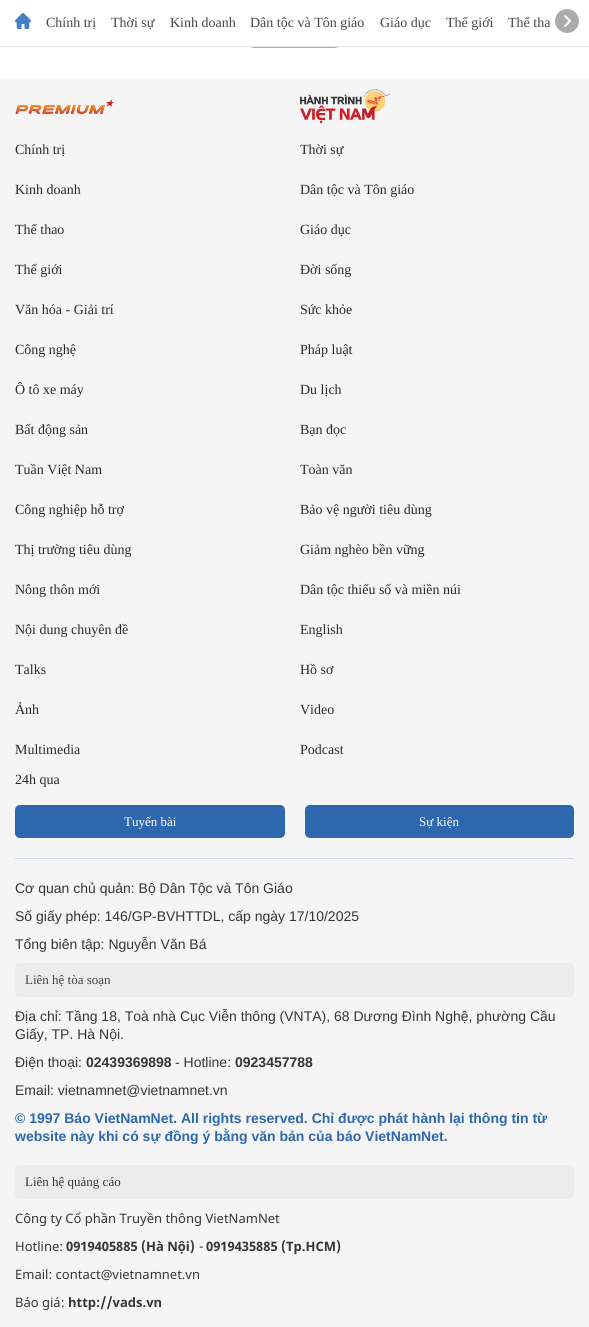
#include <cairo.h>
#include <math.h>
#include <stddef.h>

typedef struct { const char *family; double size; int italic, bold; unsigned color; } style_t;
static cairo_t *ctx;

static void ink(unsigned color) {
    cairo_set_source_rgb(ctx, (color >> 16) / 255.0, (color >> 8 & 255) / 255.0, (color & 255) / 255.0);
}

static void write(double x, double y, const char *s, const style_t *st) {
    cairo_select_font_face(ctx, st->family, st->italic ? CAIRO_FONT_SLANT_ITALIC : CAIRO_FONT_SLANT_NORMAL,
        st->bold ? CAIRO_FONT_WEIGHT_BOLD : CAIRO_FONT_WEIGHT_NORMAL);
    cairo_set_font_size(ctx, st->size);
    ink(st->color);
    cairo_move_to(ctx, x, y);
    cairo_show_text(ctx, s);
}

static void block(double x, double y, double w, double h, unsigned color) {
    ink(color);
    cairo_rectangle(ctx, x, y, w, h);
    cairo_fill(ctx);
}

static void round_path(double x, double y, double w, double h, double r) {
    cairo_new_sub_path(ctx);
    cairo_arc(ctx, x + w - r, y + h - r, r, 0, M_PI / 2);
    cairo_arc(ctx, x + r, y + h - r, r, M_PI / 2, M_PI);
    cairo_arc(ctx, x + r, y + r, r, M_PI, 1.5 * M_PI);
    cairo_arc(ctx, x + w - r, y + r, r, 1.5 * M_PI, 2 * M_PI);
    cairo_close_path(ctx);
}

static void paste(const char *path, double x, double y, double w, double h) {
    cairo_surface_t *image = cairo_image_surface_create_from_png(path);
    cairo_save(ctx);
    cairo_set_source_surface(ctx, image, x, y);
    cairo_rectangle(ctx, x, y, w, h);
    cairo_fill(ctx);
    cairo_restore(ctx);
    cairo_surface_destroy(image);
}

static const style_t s1 = {"Liberation Serif", 14, 0, 0, 0x454545};
static const style_t s2 = {"Liberation Serif", 14, 0, 0, 0x292929};
static const style_t s3 = {"Liberation Serif", 13, 0, 0, 0xffffff};
static const style_t s4 = {"Liberation Sans", 14, 0, 0, 0x353535};
static const style_t s5 = {"Liberation Serif", 13, 0, 0, 0x454545};
static const style_t s6 = {"Liberation Sans", 14, 0, 1, 0x353535};
static const style_t s7 = {"Liberation Sans", 14, 0, 1, 0x2d67ad};
static const style_t s8 = {"Liberation Serif", 13, 0, 0, 0x353535};
static const style_t s9 = {"Noto Sans", 13, 0, 0, 0x353535};
static const style_t s10 = {"Noto Sans", 13, 0, 1, 0x353535};

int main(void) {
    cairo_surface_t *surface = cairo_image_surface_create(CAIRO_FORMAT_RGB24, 589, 1327);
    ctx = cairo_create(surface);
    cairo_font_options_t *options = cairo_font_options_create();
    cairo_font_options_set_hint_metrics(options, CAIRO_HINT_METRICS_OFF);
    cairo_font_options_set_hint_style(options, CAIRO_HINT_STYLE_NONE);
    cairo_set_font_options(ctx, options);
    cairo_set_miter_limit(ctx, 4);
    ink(0xffffff);
    cairo_paint(ctx);
    round_path(239.5, 14.5, 110, 33, 16.5);
    ink(0xababab);
    cairo_set_line_width(ctx, 1);
    cairo_stroke(ctx);
    block(239, 14, 111, 32, 0xffffff);
    block(0, 46, 589, 1, 0xe7e7e7);
    paste("pic1.png", 15, 13, 16, 16);
    write(46, 27, "Chính trị", &s1);
    write(111, 27, "Thời sự", &s1);
    write(170, 27, "Kinh doanh", &s1);
    write(250, 27, "Dân tộc và Tôn giáo", &s1);
    write(380, 27, "Giáo dục", &s1);
    write(446, 27, "Thế giới", &s1);
    write(508, 27, "Thể tha", &s1);
    paste("pic2.png", 555, 9, 24, 24);
    block(0, 79, 589, 1248, 0xf5f5f5);
    block(15, 858, 559, 1, 0xd0dcea);
    paste("pic3.png", 15, 99, 100, 15);
    paste("pic4.png", 300, 89, 90, 34);
    write(15, 154, "Chính trị", &s2);
    write(300, 154, "Thời sự", &s2);
    write(15, 194, "Kinh doanh", &s2);
    write(300, 194, "Dân tộc và Tôn giáo", &s2);
    write(15, 234, "Thể thao", &s2);
    write(300, 234, "Giáo dục", &s2);
    write(15, 274, "Thế giới", &s2);
    write(300, 274, "Đời sống", &s2);
    write(15, 314, "Văn hóa - Giải trí", &s2);
    write(300, 314, "Sức khỏe", &s2);
    write(15, 354, "Công nghệ", &s2);
    write(300, 354, "Pháp luật", &s2);
    write(15, 394, "Ô tô xe máy", &s2);
    write(300, 394, "Du lịch", &s2);
    write(15, 434, "Bất động sản", &s2);
    write(300, 434, "Bạn đọc", &s2);
    write(15, 474, "Tuần Việt Nam", &s2);
    write(300, 474, "Toàn văn", &s2);
    write(15, 514, "Công nghiệp hỗ trợ", &s2);
    write(300, 514, "Bảo vệ người tiêu dùng", &s2);
    write(15, 554, "Thị trường tiêu dùng", &s2);
    write(300, 554, "Giảm nghèo bền vững", &s2);
    write(15, 594, "Nông thôn mới", &s2);
    write(300, 594, "Dân tộc thiểu số và miền núi", &s2);
    write(15, 634, "Nội dung chuyên đề", &s2);
    write(300, 634, "English", &s2);
    write(15, 674, "Talks", &s2);
    write(300, 674, "Hồ sơ", &s2);
    write(15, 714, "Ảnh", &s2);
    write(300, 714, "Video", &s2);
    write(15, 754, "Multimedia", &s2);
    write(300, 754, "Podcast", &s2);
    write(15, 784, "24h qua", &s2);
    ink(0x2d67ad);
    round_path(15, 805, 270, 33, 5);
    cairo_fill(ctx);
    write(124, 826, "Tuyến bài", &s3);
    ink(0x2d67ad);
    round_path(305, 805, 269, 33, 5);
    cairo_fill(ctx);
    write(419, 826, "Sự kiện", &s3);
    write(15, 893, "Cơ quan chủ quản: Bộ Dân Tộc và Tôn Giáo", &s4);
    write(15, 921, "Số giấy phép: 146/GP-BVHTTDL, cấp ngày 17/10/2025", &s4);
    write(15, 949, "Tổng biên tập: Nguyễn Văn Bá", &s4);
    ink(0xececec);
    round_path(15, 963, 559, 34, 5);
    cairo_fill(ctx);
    write(25, 984, "Liên hệ tòa soạn", &s5);
    write(15, 1021, "Địa chỉ: Tầng 18, Toà nhà Cục Viễn thông (VNTA), 68 Dương Đình Nghệ, phường Cầu", &s4);
    write(15, 1039, "Giấy, TP. Hà Nội.", &s4);
    write(15, 1067, "Điện thoại:", &s4);
    write(86, 1067, "02439369898", &s6);
    write(175, 1067, "- Hotline:", &s4);
    write(235, 1067, "0923457788", &s6);
    write(15, 1095, "Email: vietnamnet@vietnamnet.vn", &s4);
    write(15, 1123, "© 1997 Báo VietNamNet. All rights reserved. Chỉ được phát hành lại thông tin từ", &s7);
    write(15, 1141, "website này khi có sự đồng ý bằng văn bản của báo VietNamNet.", &s7);
    ink(0xececec);
    round_path(15, 1165, 559, 34, 5);
    cairo_fill(ctx);
    write(25, 1186, "Liên hệ quảng cáo", &s8);
    write(15, 1223, "Công ty Cổ phần Truyền thông VietNamNet", &s9);
    write(15, 1251, "Hotline:", &s9);
    write(66, 1251, "0919405885 (Hà Nội)", &s10);
    write(199, 1251, "-", &s9);
    write(206, 1251, "0919435885 (Tp.HCM)", &s10);
    write(15, 1279, "Email: contact@vietnamnet.vn", &s9);
    write(15, 1307, "Báo giá:", &s9);
    write(68, 1307, "http://vads.vn", &s10);
    cairo_surface_write_to_png(surface, "screenshot.png");
    cairo_font_options_destroy(options);
    cairo_destroy(ctx);
    cairo_surface_destroy(surface);
    return 0;
}
